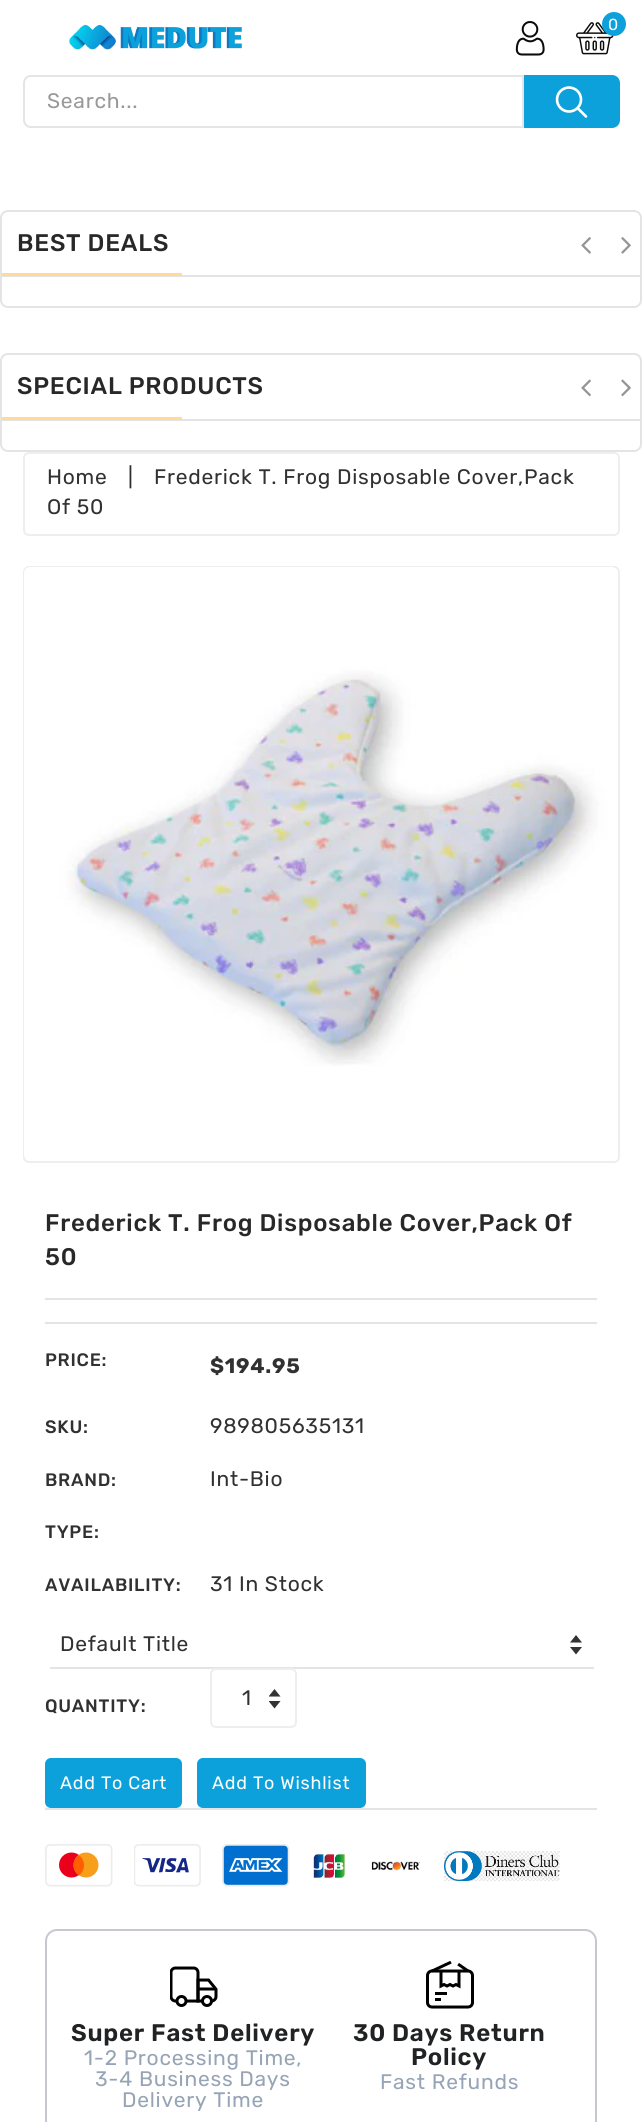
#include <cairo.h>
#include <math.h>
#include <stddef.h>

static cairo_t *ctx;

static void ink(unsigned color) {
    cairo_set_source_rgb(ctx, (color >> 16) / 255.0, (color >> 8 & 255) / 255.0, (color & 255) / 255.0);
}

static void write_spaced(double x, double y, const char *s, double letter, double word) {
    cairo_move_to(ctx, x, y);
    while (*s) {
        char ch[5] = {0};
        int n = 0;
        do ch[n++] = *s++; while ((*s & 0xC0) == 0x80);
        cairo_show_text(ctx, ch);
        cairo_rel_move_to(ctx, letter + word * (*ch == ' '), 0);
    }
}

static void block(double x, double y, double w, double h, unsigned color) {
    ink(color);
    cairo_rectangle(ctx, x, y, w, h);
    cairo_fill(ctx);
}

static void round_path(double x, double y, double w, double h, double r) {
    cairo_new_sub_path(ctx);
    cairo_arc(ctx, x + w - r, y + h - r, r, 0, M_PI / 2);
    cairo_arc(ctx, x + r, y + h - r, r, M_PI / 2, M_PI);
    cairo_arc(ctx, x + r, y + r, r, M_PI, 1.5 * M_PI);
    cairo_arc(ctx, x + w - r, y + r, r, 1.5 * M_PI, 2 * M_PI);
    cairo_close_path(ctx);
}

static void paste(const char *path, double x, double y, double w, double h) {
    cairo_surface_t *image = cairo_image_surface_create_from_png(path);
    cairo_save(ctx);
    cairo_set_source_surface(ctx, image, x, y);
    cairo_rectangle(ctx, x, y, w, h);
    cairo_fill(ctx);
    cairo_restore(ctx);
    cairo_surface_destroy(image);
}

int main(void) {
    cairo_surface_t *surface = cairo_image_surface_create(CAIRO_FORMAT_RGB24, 642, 2122);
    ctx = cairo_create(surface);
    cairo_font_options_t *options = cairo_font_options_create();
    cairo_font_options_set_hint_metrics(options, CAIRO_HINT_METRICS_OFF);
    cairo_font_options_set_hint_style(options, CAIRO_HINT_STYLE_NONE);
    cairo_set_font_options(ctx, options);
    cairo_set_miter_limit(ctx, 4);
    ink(0xffffff);
    cairo_paint(ctx);
    paste("pic1.png", 69, 24, 173, 26);
    paste("pic2.png", 515, 21, 30, 35);
    paste("pic3.png", 576, 22, 38, 33);
    ink(0x0da1db);
    cairo_arc(ctx, 614, 24, 12, 0, 2 * M_PI);
    cairo_fill(ctx);
    cairo_select_font_face(ctx, "Rubik", CAIRO_FONT_SLANT_NORMAL, CAIRO_FONT_WEIGHT_NORMAL);
    cairo_set_font_size(ctx, 16);
    ink(0xffffff);
    write_spaced(608, 30, "0", 0.75, 0);
    cairo_new_path(ctx);
    cairo_move_to(ctx, 31, 76);
    cairo_line_to(ctx, 523, 76);
    cairo_line_to(ctx, 523, 127);
    cairo_line_to(ctx, 31, 127);
    cairo_curve_to(ctx, 27, 127, 24, 124, 24, 120);
    cairo_line_to(ctx, 24, 83);
    cairo_curve_to(ctx, 24, 79, 27, 76, 31, 76);
    cairo_close_path(ctx);
    ink(0xe5e5e5);
    cairo_stroke(ctx);
    cairo_set_font_size(ctx, 21);
    ink(0x999999);
    write_spaced(47, 108, "Search...", 0.75, 0);
    ink(0x0da1db);
    cairo_new_path(ctx);
    cairo_move_to(ctx, 524, 75);
    cairo_line_to(ctx, 612, 75);
    cairo_curve_to(ctx, 616.5, 75, 620, 78.5, 620, 83);
    cairo_line_to(ctx, 620, 120);
    cairo_curve_to(ctx, 620, 124.5, 616.5, 128, 612, 128);
    cairo_line_to(ctx, 524, 128);
    cairo_close_path(ctx);
    cairo_fill(ctx);
    paste("pic4.png", 555, 86, 33, 32);
    round_path(1, 211, 640, 96, 7);
    ink(0xe4e4e4);
    cairo_stroke(ctx);
    block(2, 275, 639, 2, 0xe4e4e4);
    cairo_select_font_face(ctx, "Rubik Medium", CAIRO_FONT_SLANT_NORMAL, CAIRO_FONT_WEIGHT_NORMAL);
    cairo_set_font_size(ctx, 24);
    ink(0x282828);
    write_spaced(17, 251, "BEST DEALS", 0.75, 0);
    block(2, 273, 180, 3, 0xffdb95);
    paste("pic5.png", 581, 237, 10, 17);
    paste("pic6.png", 621, 237, 10, 17);
    round_path(1, 354, 640, 97, 7);
    ink(0xe4e4e4);
    cairo_stroke(ctx);
    block(2, 419, 639, 2, 0xe4e4e4);
    ink(0x282828);
    write_spaced(17, 394, "SPECIAL PRODUCTS", 0.75, 0);
    block(2, 417, 180, 3, 0xffdb95);
    paste("pic7.png", 581, 379, 10, 18);
    paste("pic8.png", 621, 379, 10, 18);
    round_path(24, 453, 595, 82, 5);
    ink(0xeeeeee);
    cairo_stroke(ctx);
    cairo_select_font_face(ctx, "Rubik", CAIRO_FONT_SLANT_NORMAL, CAIRO_FONT_WEIGHT_NORMAL);
    cairo_set_font_size(ctx, 21);
    ink(0x313131);
    write_spaced(47, 484, "Home", 0.75, 0);
    write_spaced(128, 484, "|", 0.75, 0);
    write_spaced(154, 484, "Frederick T. Frog Disposable Cover,Pack", 0.75, 0);
    write_spaced(47, 514, "Of 50", 0.75, 0);
    round_path(24, 567, 595, 595, 5);
    ink(0xeeeeee);
    cairo_stroke(ctx);
    paste("pic9.png", 24, 567, 591, 591);
    cairo_select_font_face(ctx, "Rubik Medium", CAIRO_FONT_SLANT_NORMAL, CAIRO_FONT_WEIGHT_NORMAL);
    cairo_set_font_size(ctx, 24);
    ink(0x282828);
    write_spaced(45, 1231, "Frederick T. Frog Disposable Cover,Pack Of", 0.75, 0);
    write_spaced(45, 1265, "50", 0.75, 0);
    block(45, 1298, 552, 2, 0xe4e4e4);
    block(45, 1322, 552, 2, 0xe4e4e4);
    cairo_set_font_size(ctx, 18);
    ink(0x313131);
    write_spaced(45, 1366, "PRICE:", 0.75, 0);
    cairo_select_font_face(ctx, "Rubik", CAIRO_FONT_SLANT_NORMAL, CAIRO_FONT_WEIGHT_BOLD);
    cairo_set_font_size(ctx, 21);
    write_spaced(210, 1373, "$194.95", 0.75, 0);
    cairo_select_font_face(ctx, "Rubik Medium", CAIRO_FONT_SLANT_NORMAL, CAIRO_FONT_WEIGHT_NORMAL);
    cairo_set_font_size(ctx, 18);
    write_spaced(45, 1433, "SKU:", 0.75, 0);
    cairo_select_font_face(ctx, "Rubik", CAIRO_FONT_SLANT_NORMAL, CAIRO_FONT_WEIGHT_NORMAL);
    cairo_set_font_size(ctx, 21);
    write_spaced(210, 1433, "989805635131", 0.75, 0);
    cairo_select_font_face(ctx, "Rubik Medium", CAIRO_FONT_SLANT_NORMAL, CAIRO_FONT_WEIGHT_NORMAL);
    cairo_set_font_size(ctx, 18);
    write_spaced(45, 1486, "BRAND:", 0.75, 0);
    cairo_select_font_face(ctx, "Rubik", CAIRO_FONT_SLANT_NORMAL, CAIRO_FONT_WEIGHT_NORMAL);
    cairo_set_font_size(ctx, 21);
    write_spaced(210, 1486, "Int-Bio", 0.75, 0);
    cairo_select_font_face(ctx, "Rubik Medium", CAIRO_FONT_SLANT_NORMAL, CAIRO_FONT_WEIGHT_NORMAL);
    cairo_set_font_size(ctx, 18);
    write_spaced(45, 1538, "TYPE:", 0.75, 0);
    write_spaced(45, 1591, "AVAILABILITY:", 0.75, 0);
    cairo_select_font_face(ctx, "Rubik", CAIRO_FONT_SLANT_NORMAL, CAIRO_FONT_WEIGHT_NORMAL);
    cairo_set_font_size(ctx, 21);
    write_spaced(210, 1591, "31 In Stock", 0.75, 0);
    paste("pic10.png", 570, 1635, 12, 20);
    block(50, 1667, 544, 2, 0xe4e4e4);
    ink(0x313131);
    write_spaced(60, 1651, "Default Title", 0.75, 0);
    ink(0xffffff);
    round_path(210, 1668, 87, 60, 6);
    cairo_fill(ctx);
    paste("pic11.png", 269, 1689, 12, 20);
    round_path(211, 1669, 85, 58, 5);
    ink(0xeeeeee);
    cairo_stroke(ctx);
    ink(0x313131);
    write_spaced(242, 1705, "1", 0.75, 0);
    cairo_select_font_face(ctx, "Rubik Medium", CAIRO_FONT_SLANT_NORMAL, CAIRO_FONT_WEIGHT_NORMAL);
    cairo_set_font_size(ctx, 18);
    write_spaced(45, 1712, "QUANTITY:", 0.75, 0);
    ink(0x0da1db);
    round_path(45, 1758, 137, 50, 6);
    cairo_fill(ctx);
    cairo_select_font_face(ctx, "Rubik", CAIRO_FONT_SLANT_NORMAL, CAIRO_FONT_WEIGHT_NORMAL);
    ink(0xffffff);
    write_spaced(60, 1789, "Add To Cart", 0.75, 0);
    ink(0x0da1db);
    round_path(197, 1758, 169, 50, 6);
    cairo_fill(ctx);
    ink(0xffffff);
    write_spaced(212, 1789, "Add To Wishlist", 0.75, 0);
    block(45, 1808, 552, 2, 0xe4e4e4);
    paste("pic12.png", 45, 1844, 68, 43);
    paste("pic13.png", 134, 1844, 67, 43);
    paste("pic14.png", 222, 1844, 68, 43);
    paste("pic15.png", 313, 1854, 32, 25);
    paste("pic16.png", 371, 1861, 49, 10);
    paste("pic17.png", 444, 1851, 116, 30);
    round_path(46, 1930, 550, 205, 11);
    ink(0xc5c8d1);
    cairo_stroke(ctx);
    paste("pic18.png", 170, 1966, 48, 41);
    cairo_select_font_face(ctx, "Rubik SemiBold", CAIRO_FONT_SLANT_NORMAL, CAIRO_FONT_WEIGHT_NORMAL);
    cairo_set_font_size(ctx, 24);
    ink(0x202223);
    write_spaced(71, 2041, "Super Fast Delivery", 0.75, 0);
    cairo_select_font_face(ctx, "Rubik", CAIRO_FONT_SLANT_NORMAL, CAIRO_FONT_WEIGHT_NORMAL);
    cairo_set_font_size(ctx, 21);
    ink(0x96a4b6);
    write_spaced(84, 2065, "1-2 Processing Time,", 0.75, 0);
    write_spaced(95, 2086, "3-4 Business Days", 0.75, 0);
    write_spaced(122, 2107, "Delivery Time", 0.75, 0);
    paste("pic19.png", 426, 1961, 48, 48);
    cairo_select_font_face(ctx, "Rubik SemiBold", CAIRO_FONT_SLANT_NORMAL, CAIRO_FONT_WEIGHT_NORMAL);
    cairo_set_font_size(ctx, 24);
    ink(0x202223);
    write_spaced(353, 2041, "30 Days Return", 0.75, 0);
    write_spaced(411, 2065, "Policy", 0.75, 0);
    cairo_select_font_face(ctx, "Rubik", CAIRO_FONT_SLANT_NORMAL, CAIRO_FONT_WEIGHT_NORMAL);
    cairo_set_font_size(ctx, 21);
    ink(0x96a4b6);
    write_spaced(380, 2089, "Fast Refunds", 0.75, 0);
    cairo_surface_write_to_png(surface, "screenshot.png");
    cairo_font_options_destroy(options);
    cairo_destroy(ctx);
    cairo_surface_destroy(surface);
    return 0;
}
